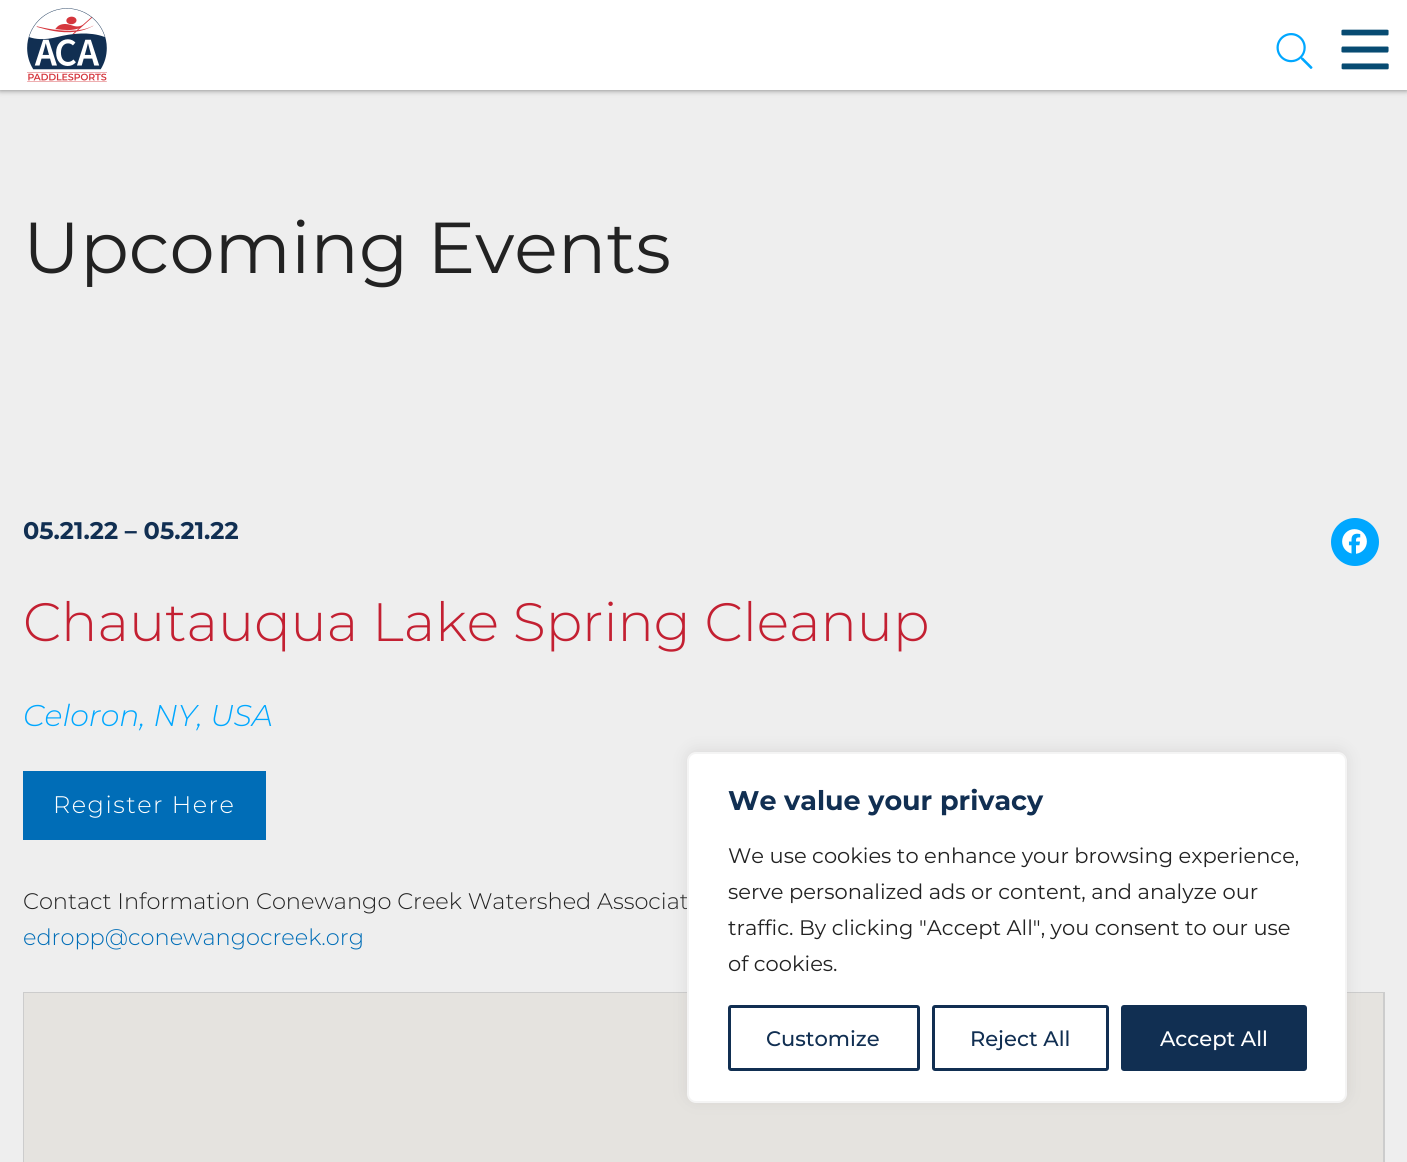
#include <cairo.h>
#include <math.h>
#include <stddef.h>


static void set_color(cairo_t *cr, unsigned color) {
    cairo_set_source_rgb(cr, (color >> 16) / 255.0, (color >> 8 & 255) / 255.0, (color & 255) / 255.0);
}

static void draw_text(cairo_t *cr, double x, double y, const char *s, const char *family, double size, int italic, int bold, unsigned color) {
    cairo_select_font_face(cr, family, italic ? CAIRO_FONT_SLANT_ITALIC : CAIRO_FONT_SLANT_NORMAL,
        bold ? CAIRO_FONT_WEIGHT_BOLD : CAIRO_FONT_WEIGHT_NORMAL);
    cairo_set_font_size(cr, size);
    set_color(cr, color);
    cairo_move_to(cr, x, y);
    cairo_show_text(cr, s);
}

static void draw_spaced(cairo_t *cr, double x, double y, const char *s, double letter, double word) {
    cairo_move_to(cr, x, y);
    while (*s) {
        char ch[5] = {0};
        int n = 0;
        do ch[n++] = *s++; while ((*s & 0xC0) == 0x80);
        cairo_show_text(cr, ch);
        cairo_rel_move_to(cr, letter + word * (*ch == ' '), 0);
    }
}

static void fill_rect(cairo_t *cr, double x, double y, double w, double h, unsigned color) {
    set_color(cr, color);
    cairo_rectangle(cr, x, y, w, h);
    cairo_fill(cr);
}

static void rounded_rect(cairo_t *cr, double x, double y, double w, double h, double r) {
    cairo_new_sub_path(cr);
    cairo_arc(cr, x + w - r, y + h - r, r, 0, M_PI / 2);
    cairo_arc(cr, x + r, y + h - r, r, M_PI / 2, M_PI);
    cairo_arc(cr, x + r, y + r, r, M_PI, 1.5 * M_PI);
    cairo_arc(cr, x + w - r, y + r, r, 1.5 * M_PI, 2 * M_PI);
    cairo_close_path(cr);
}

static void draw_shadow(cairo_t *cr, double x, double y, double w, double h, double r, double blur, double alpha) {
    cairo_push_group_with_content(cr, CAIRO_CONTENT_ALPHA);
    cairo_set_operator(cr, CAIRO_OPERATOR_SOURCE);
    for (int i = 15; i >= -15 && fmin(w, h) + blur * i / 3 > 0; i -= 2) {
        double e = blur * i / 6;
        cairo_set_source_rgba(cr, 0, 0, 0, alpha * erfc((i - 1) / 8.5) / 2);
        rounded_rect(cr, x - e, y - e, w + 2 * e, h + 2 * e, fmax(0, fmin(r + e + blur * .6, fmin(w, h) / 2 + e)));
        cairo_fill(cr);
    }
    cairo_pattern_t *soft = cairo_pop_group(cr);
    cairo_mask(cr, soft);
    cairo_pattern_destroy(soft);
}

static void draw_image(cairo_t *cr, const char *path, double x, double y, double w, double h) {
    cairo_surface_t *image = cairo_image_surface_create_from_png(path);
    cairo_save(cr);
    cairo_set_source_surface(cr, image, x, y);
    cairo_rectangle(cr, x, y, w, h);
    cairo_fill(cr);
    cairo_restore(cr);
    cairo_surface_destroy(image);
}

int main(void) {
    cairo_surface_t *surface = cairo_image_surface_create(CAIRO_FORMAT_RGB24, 1407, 1162);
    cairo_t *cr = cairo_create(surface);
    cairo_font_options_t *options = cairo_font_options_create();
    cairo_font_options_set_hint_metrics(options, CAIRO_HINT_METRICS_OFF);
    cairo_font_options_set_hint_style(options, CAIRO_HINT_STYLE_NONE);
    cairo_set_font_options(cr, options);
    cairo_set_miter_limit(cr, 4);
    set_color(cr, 0xEEEEEE);
    cairo_paint(cr);
    set_color(cr, 0x000000);
    draw_shadow(cr, 0, 0, 1407, 90, 0, 3, 0.5);
    fill_rect(cr, 0, 0, 1407, 90, 0xFFFFFF);
    draw_image(cr, "assets/img1.png", 27, 8, 80, 74);
    draw_image(cr, "assets/img2.png", 1276, 33, 37, 36);
    draw_image(cr, "assets/img3.png", 1341, 29, 48, 41);
    draw_text(cr, 23, 273, "Upcoming Events", "Montserrat", 72, 0, 0, 0x222222);
    draw_text(cr, 23, 539, "05.21.22 – 05.21.22", "Montserrat", 24, 0, 1, 0x112F52);
    set_color(cr, 0x00A7FF);
    cairo_new_path(cr);
    cairo_arc(cr, 1355, 542, 24, 0, 2 * M_PI);
    cairo_fill(cr);
    draw_image(cr, "assets/img4.png", 1342, 529, 25, 25);
    draw_text(cr, 23, 641, "Chautauqua Lake Spring Cleanup", "Montserrat Light", 54, 0, 0, 0xC32032);
    draw_text(cr, 23, 726, "Celoron, NY, USA", "Montserrat Light", 30, 1, 0, 0x00A7FF);
    fill_rect(cr, 23, 771, 243, 69, 0x006DB7);
    cairo_select_font_face(cr, "Montserrat Light", CAIRO_FONT_SLANT_NORMAL, CAIRO_FONT_WEIGHT_NORMAL);
    cairo_set_font_size(cr, 24);
    set_color(cr, 0xFFFFFF);
    draw_spaced(cr, 53, 813, "Register Here", 1.5, 0);
    draw_text(cr, 23, 909, "Contact Information Conewango Creek Watershed Associat", "Montserrat Light", 22.5, 0, 0, 0x222222);
    draw_text(cr, 23, 945, "edropp@conewangocreek.org", "Montserrat Light", 22.5, 0, 0, 0x006DB7);
    cairo_rectangle(cr, 24, 993, 1360, 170);
    set_color(cr, 0xCCCCCC);
    cairo_stroke(cr);
    fill_rect(cr, 24, 993, 1359, 169, 0xE5E3DF);
    set_color(cr, 0xACABAB);
    draw_shadow(cr, 687, 750, 660, 351, 9, 7.5, 0.3);
    set_color(cr, 0xFFFFFF);
    rounded_rect(cr, 688, 753, 658, 349, 8);
    cairo_fill_preserve(cr);
    set_color(cr, 0xF4F4F4);
    cairo_stroke(cr);
    draw_text(cr, 728, 810, "We value your privacy", "Montserrat", 27, 0, 1, 0x112F52);
    draw_text(cr, 728, 863, "We use cookies to enhance your browsing experience,", "Montserrat", 21, 0, 0, 0x222222);
    draw_text(cr, 728, 899, "serve personalized ads or content, and analyze our", "Montserrat", 21, 0, 0, 0x222222);
    draw_text(cr, 728, 935, "traffic. By clicking \"Accept All\", you consent to our use", "Montserrat", 21, 0, 0, 0x222222);
    draw_text(cr, 728, 971, "of cookies.", "Montserrat", 21, 0, 0, 0x222222);
    rounded_rect(cr, 729.5, 1006.5, 189, 63, 1.5);
    set_color(cr, 0x112F52);
    cairo_set_line_width(cr, 3);
    cairo_stroke(cr);
    draw_text(cr, 766, 1046, "Customize", "Montserrat Medium", 21, 0, 0, 0x112F52);
    rounded_rect(cr, 933.5, 1006.5, 174, 63, 1.5);
    cairo_stroke(cr);
    draw_text(cr, 970, 1046, "Reject All", "Montserrat Medium", 21, 0, 0, 0x112F52);
    rounded_rect(cr, 1122.5, 1006.5, 183, 63, 1.5);
    cairo_fill_preserve(cr);
    cairo_stroke(cr);
    draw_text(cr, 1160, 1046, "Accept All", "Montserrat Medium", 21, 0, 0, 0xFFFFFF);
    cairo_surface_write_to_png(surface, "output.png");
    cairo_font_options_destroy(options);
    cairo_destroy(cr);
    cairo_surface_destroy(surface);
    return 0;
}
